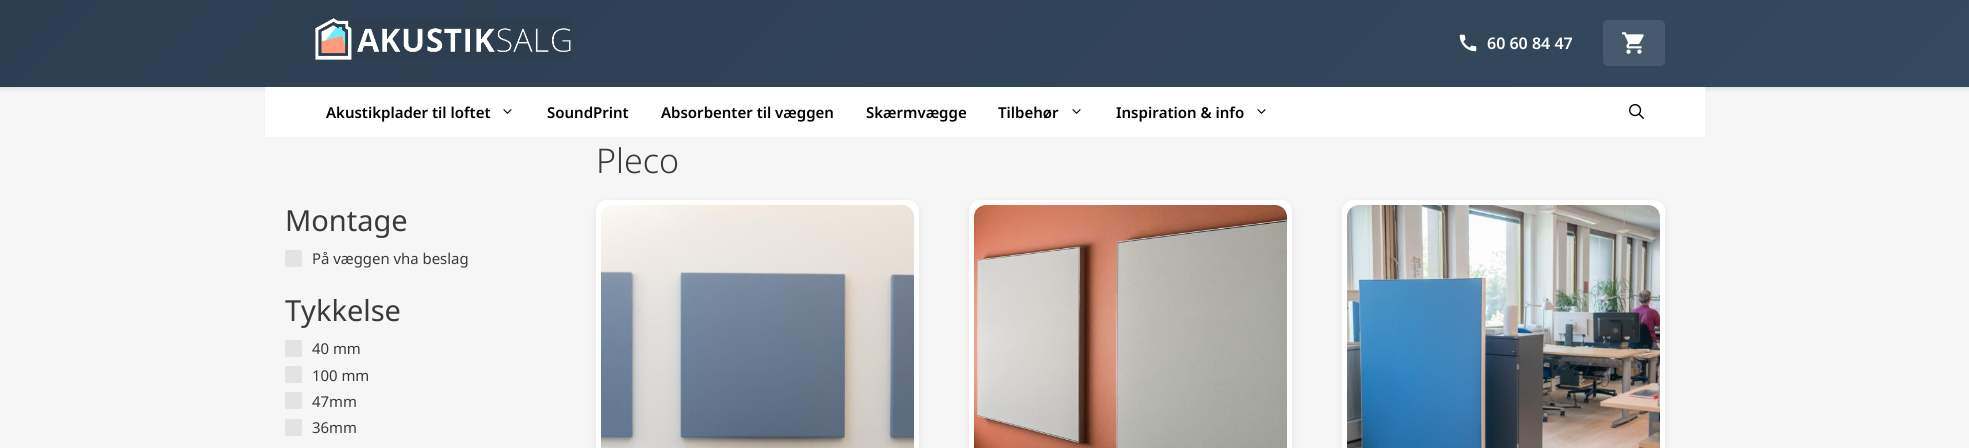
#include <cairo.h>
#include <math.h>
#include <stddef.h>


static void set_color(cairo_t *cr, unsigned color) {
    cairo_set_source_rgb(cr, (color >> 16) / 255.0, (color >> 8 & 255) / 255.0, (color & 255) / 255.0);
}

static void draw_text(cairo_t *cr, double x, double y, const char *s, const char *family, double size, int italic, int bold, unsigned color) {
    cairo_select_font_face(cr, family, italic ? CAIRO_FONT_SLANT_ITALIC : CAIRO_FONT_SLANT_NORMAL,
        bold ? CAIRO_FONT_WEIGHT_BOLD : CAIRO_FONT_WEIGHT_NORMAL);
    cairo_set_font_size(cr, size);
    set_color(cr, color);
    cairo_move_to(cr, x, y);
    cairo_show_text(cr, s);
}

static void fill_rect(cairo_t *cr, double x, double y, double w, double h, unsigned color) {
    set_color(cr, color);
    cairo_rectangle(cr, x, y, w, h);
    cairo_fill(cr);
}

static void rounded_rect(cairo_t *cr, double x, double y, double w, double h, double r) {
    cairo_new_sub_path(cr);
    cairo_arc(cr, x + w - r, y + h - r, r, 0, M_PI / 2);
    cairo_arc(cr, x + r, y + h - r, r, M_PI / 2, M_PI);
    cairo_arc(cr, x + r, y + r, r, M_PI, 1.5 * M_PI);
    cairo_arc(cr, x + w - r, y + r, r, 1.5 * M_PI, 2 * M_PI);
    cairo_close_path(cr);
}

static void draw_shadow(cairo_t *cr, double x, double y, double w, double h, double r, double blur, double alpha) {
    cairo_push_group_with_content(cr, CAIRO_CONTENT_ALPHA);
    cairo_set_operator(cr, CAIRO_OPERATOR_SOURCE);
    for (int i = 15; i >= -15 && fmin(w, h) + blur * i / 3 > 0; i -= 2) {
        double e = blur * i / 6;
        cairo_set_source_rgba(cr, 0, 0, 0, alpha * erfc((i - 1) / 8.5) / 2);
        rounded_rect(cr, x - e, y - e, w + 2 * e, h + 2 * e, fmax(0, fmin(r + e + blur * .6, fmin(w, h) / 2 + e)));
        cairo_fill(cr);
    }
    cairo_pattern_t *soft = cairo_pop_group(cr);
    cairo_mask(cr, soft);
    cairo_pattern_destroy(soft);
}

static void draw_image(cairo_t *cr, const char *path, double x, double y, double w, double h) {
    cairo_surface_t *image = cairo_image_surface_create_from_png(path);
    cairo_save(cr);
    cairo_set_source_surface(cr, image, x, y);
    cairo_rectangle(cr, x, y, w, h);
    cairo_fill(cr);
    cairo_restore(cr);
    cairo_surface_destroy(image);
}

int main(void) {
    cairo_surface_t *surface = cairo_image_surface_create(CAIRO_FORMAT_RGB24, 1969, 448);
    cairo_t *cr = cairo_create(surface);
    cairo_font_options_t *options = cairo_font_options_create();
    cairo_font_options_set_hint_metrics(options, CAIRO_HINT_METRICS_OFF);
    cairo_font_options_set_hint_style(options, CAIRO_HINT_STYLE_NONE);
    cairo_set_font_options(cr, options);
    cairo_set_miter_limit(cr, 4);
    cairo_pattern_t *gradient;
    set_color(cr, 0xF6F6F6);
    cairo_paint(cr);
    set_color(cr, 0x000000);
    draw_shadow(cr, 0, 2, 1969, 87, 0, 2.5, 0.1);
    gradient = cairo_pattern_create_linear(471, -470, 1499, 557);
    cairo_pattern_add_color_stop_rgba(gradient, 0, 0.173, 0.243, 0.314, 1);
    cairo_pattern_add_color_stop_rgba(gradient, 1, 0.204, 0.286, 0.369, 1);
    cairo_set_source(cr, gradient);
    cairo_pattern_destroy(gradient);
    cairo_rectangle(cr, 0, 0, 1969, 87);
    cairo_fill(cr);
    draw_image(cr, "assets/img1.png", 315, 18, 256, 42);
    draw_image(cr, "assets/img2.png", 1459, 34, 18, 18);
    draw_text(cr, 1487, 49, "60 60 84 47", "Noto Sans SemiBold", 16, 0, 0, 0xFFFFFF);
    set_color(cr, 0x47596C);
    rounded_rect(cr, 1603, 20, 62, 46, 5);
    cairo_fill(cr);
    draw_image(cr, "assets/img3.png", 1622, 32, 22, 22);
    fill_rect(cr, 265, 87, 1440, 50, 0xFFFFFF);
    draw_text(cr, 326, 118, "Akustikplader til loftet", "Noto Sans SemiBold", 15, 0, 0, 0x000000);
    draw_image(cr, "assets/img4.png", 503, 109, 9, 5);
    draw_text(cr, 547, 118, "SoundPrint", "Noto Sans SemiBold", 15, 0, 0, 0x000000);
    draw_text(cr, 661, 118, "Absorbenter til væggen", "Noto Sans SemiBold", 15, 0, 0, 0x000000);
    draw_text(cr, 866, 118, "Skærmvægge", "Noto Sans SemiBold", 15, 0, 0, 0x000000);
    draw_text(cr, 998, 118, "Tilbehør", "Noto Sans SemiBold", 15, 0, 0, 0x000000);
    draw_image(cr, "assets/img4.png", 1072, 109, 9, 5);
    draw_text(cr, 1116, 118, "Inspiration & info", "Noto Sans SemiBold", 15, 0, 0, 0x000000);
    draw_image(cr, "assets/img4.png", 1257, 109, 9, 5);
    draw_image(cr, "assets/img5.png", 1629, 104, 15, 15);
    draw_text(cr, 596, 173, "Pleco", "Noto Sans Light", 34, 0, 0, 0x3A3A3A);
    set_color(cr, 0x000000);
    draw_shadow(cr, 596, 202, 323, 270, 12, 4, 0.08);
    set_color(cr, 0xFFFFFF);
    rounded_rect(cr, 596, 200, 323, 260, 12);
    cairo_fill(cr);
    cairo_new_path(cr);
    cairo_move_to(cr, 608, 200);
    cairo_curve_to(cr, 601, 200, 596, 205, 596, 212);
    cairo_line_to(cr, 596, 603);
    cairo_line_to(cr, 601, 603);
    cairo_line_to(cr, 601, 212);
    cairo_curve_to(cr, 601, 208, 604, 205, 608, 205);
    cairo_line_to(cr, 907, 205);
    cairo_curve_to(cr, 911, 205, 914, 208, 914, 212);
    cairo_line_to(cr, 914, 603);
    cairo_line_to(cr, 919, 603);
    cairo_line_to(cr, 919, 212);
    cairo_curve_to(cr, 919, 205, 914, 200, 907, 200);
    cairo_close_path(cr);
    cairo_fill(cr);
    draw_image(cr, "assets/img6.png", 601, 205, 313, 243);
    set_color(cr, 0x000000);
    draw_shadow(cr, 969, 202, 323, 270, 12, 4, 0.08);
    set_color(cr, 0xFFFFFF);
    rounded_rect(cr, 969, 200, 323, 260, 12);
    cairo_fill(cr);
    cairo_new_path(cr);
    cairo_move_to(cr, 981, 200);
    cairo_curve_to(cr, 974, 200, 969, 205, 969, 212);
    cairo_line_to(cr, 969, 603);
    cairo_line_to(cr, 974, 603);
    cairo_line_to(cr, 974, 212);
    cairo_curve_to(cr, 974, 208, 977, 205, 981, 205);
    cairo_line_to(cr, 1280, 205);
    cairo_curve_to(cr, 1284, 205, 1287, 208, 1287, 212);
    cairo_line_to(cr, 1287, 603);
    cairo_line_to(cr, 1292, 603);
    cairo_line_to(cr, 1292, 212);
    cairo_curve_to(cr, 1292, 205, 1287, 200, 1280, 200);
    cairo_close_path(cr);
    cairo_fill(cr);
    draw_image(cr, "assets/img7.png", 974, 205, 313, 243);
    set_color(cr, 0x000000);
    draw_shadow(cr, 1342, 202, 323, 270, 12, 4, 0.08);
    set_color(cr, 0xFFFFFF);
    rounded_rect(cr, 1342, 200, 323, 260, 12);
    cairo_fill(cr);
    cairo_new_path(cr);
    cairo_move_to(cr, 1354, 200);
    cairo_curve_to(cr, 1347, 200, 1342, 205, 1342, 212);
    cairo_line_to(cr, 1342, 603);
    cairo_line_to(cr, 1347, 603);
    cairo_line_to(cr, 1347, 212);
    cairo_curve_to(cr, 1347, 208, 1350, 205, 1354, 205);
    cairo_line_to(cr, 1653, 205);
    cairo_curve_to(cr, 1657, 205, 1660, 208, 1660, 212);
    cairo_line_to(cr, 1660, 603);
    cairo_line_to(cr, 1665, 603);
    cairo_line_to(cr, 1665, 212);
    cairo_curve_to(cr, 1665, 205, 1660, 200, 1653, 200);
    cairo_close_path(cr);
    cairo_fill(cr);
    draw_image(cr, "assets/img8.png", 1347, 205, 313, 243);
    draw_text(cr, 285, 231, "Montage", "Noto Sans", 29, 0, 0, 0x3A3A3A);
    set_color(cr, 0xE3E3E3);
    rounded_rect(cr, 285, 250, 17, 17, 2);
    cairo_fill(cr);
    draw_text(cr, 312, 264, "På væggen vha beslag", "Noto Sans", 14.9, 0, 0, 0x3A3A3A);
    draw_text(cr, 285, 321, "Tykkelse", "Noto Sans", 29, 0, 0, 0x3A3A3A);
    set_color(cr, 0xE3E3E3);
    rounded_rect(cr, 285, 340, 17, 17, 2);
    cairo_fill(cr);
    draw_text(cr, 312, 354, "40 mm", "Noto Sans", 14.9, 0, 0, 0x3A3A3A);
    set_color(cr, 0xE3E3E3);
    rounded_rect(cr, 285, 366, 17, 17, 2);
    cairo_fill(cr);
    draw_text(cr, 312, 381, "100 mm", "Noto Sans", 14.9, 0, 0, 0x3A3A3A);
    set_color(cr, 0xE3E3E3);
    rounded_rect(cr, 285, 392, 17, 17, 2);
    cairo_fill(cr);
    draw_text(cr, 312, 407, "47mm", "Noto Sans", 14.9, 0, 0, 0x3A3A3A);
    set_color(cr, 0xE3E3E3);
    rounded_rect(cr, 285, 419, 17, 17, 2);
    cairo_fill(cr);
    draw_text(cr, 312, 433, "36mm", "Noto Sans", 14.9, 0, 0, 0x3A3A3A);
    cairo_surface_write_to_png(surface, "output.png");
    cairo_font_options_destroy(options);
    cairo_destroy(cr);
    cairo_surface_destroy(surface);
    return 0;
}
